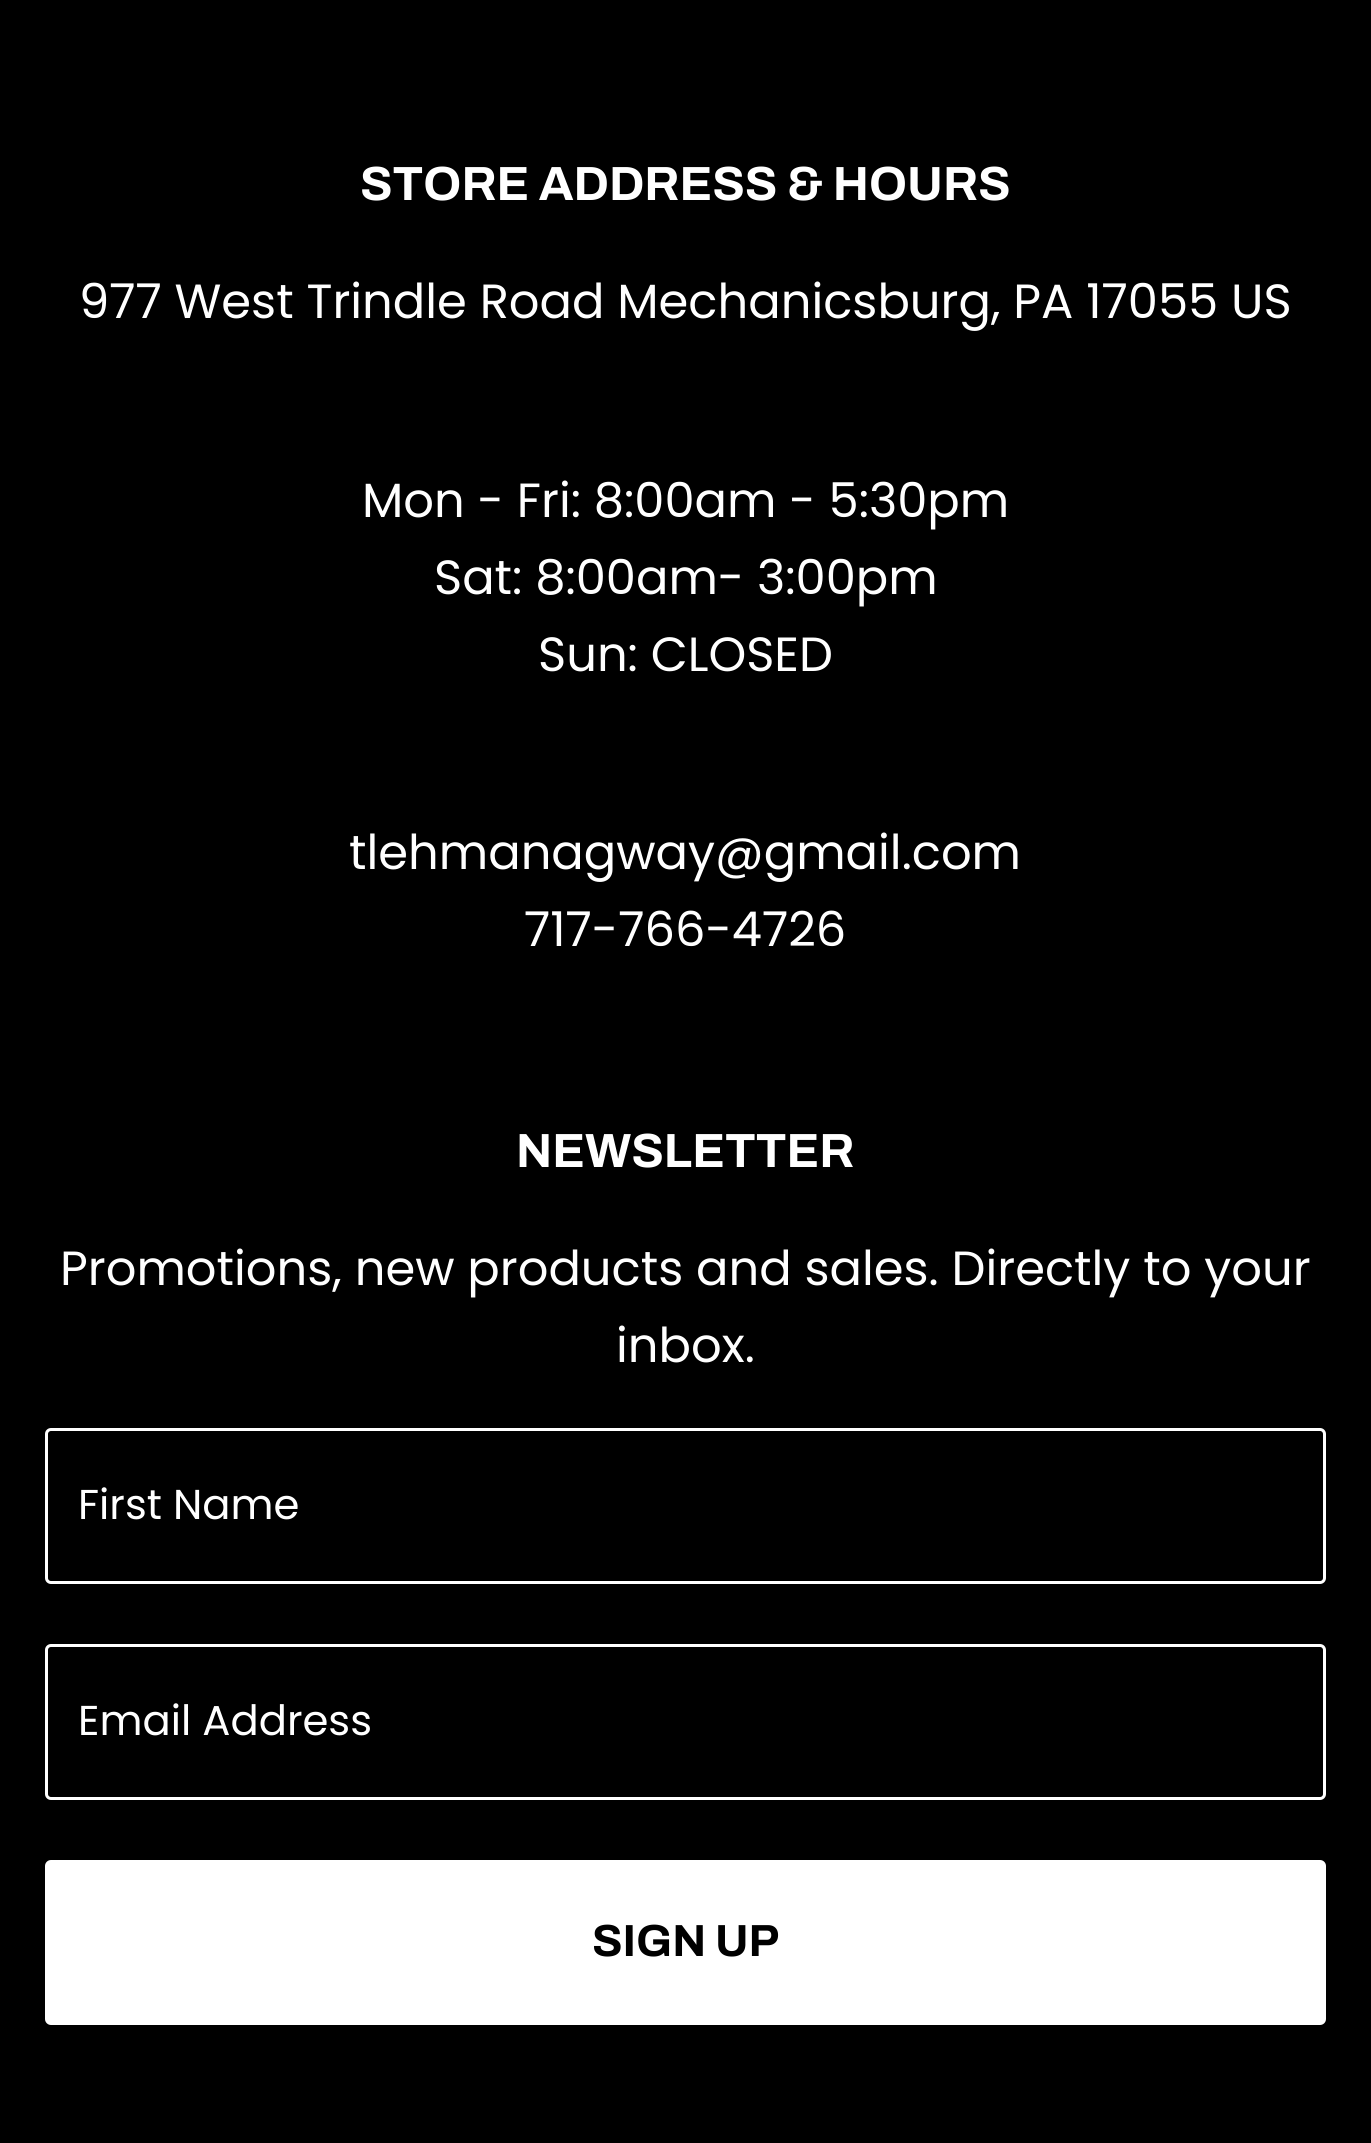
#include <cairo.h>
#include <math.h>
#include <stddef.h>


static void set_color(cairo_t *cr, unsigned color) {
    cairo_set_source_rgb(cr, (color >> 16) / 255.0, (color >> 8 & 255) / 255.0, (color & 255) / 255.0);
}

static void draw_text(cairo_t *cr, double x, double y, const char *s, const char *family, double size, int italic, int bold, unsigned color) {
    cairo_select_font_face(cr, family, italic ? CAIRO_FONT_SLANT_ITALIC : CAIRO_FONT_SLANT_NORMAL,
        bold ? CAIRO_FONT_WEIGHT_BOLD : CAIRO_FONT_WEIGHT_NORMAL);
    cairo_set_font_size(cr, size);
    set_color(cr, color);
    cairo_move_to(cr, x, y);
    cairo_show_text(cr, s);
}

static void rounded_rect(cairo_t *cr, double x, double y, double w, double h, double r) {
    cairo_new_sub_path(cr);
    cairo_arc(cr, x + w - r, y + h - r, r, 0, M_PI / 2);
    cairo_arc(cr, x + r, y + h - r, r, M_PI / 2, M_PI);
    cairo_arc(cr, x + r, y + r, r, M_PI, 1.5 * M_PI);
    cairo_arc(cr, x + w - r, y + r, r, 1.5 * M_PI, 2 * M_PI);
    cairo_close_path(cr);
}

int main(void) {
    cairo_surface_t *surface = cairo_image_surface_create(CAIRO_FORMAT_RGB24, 1371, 2143);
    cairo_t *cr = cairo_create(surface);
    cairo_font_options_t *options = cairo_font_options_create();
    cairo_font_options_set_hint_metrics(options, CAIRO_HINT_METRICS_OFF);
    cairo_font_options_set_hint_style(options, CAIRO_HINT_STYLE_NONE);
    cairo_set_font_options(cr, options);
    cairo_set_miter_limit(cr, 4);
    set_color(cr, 0x000000);
    cairo_paint(cr);
    draw_text(cr, 360, 200, "STORE ADDRESS & HOURS", "Archivo", 48, 0, 1, 0xFFFFFF);
    draw_text(cr, 79, 318, "977 West Trindle Road Mechanicsburg, PA 17055 US", "Poppins", 48, 0, 0, 0xFFFFFF);
    draw_text(cr, 362, 517, "Mon - Fri: 8:00am - 5:30pm", "Poppins", 48, 0, 0, 0xFFFFFF);
    draw_text(cr, 434, 594, "Sat: 8:00am- 3:00pm", "Poppins", 48, 0, 0, 0xFFFFFF);
    draw_text(cr, 538, 671, "Sun: CLOSED", "Poppins", 48, 0, 0, 0xFFFFFF);
    draw_text(cr, 349, 869, "tlehmanagway@gmail.com", "Poppins", 48, 0, 0, 0xFFFFFF);
    draw_text(cr, 524, 946, "717-766-4726", "Poppins", 48, 0, 0, 0xFFFFFF);
    draw_text(cr, 516, 1167, "NEWSLETTER", "Archivo", 48, 0, 1, 0xFFFFFF);
    draw_text(cr, 60, 1285, "Promotions, new products and sales. Directly to your", "Poppins", 48, 0, 0, 0xFFFFFF);
    draw_text(cr, 616, 1362, "inbox.", "Poppins", 48, 0, 0, 0xFFFFFF);
    rounded_rect(cr, 46.5, 1429.5, 1278, 153, 4.5);
    cairo_set_line_width(cr, 3);
    cairo_stroke(cr);
    draw_text(cr, 78, 1519, "First Name", "Poppins", 41.75, 0, 0, 0xFFFFFF);
    rounded_rect(cr, 46.5, 1645.5, 1278, 153, 4.5);
    cairo_stroke(cr);
    draw_text(cr, 78, 1735, "Email Address", "Poppins", 41.75, 0, 0, 0xFFFFFF);
    rounded_rect(cr, 45, 1860, 1281, 165, 6);
    cairo_fill(cr);
    draw_text(cr, 592, 1956, "SIGN UP", "Archivo", 45, 0, 1, 0x000000);
    cairo_surface_write_to_png(surface, "output.png");
    cairo_font_options_destroy(options);
    cairo_destroy(cr);
    cairo_surface_destroy(surface);
    return 0;
}
